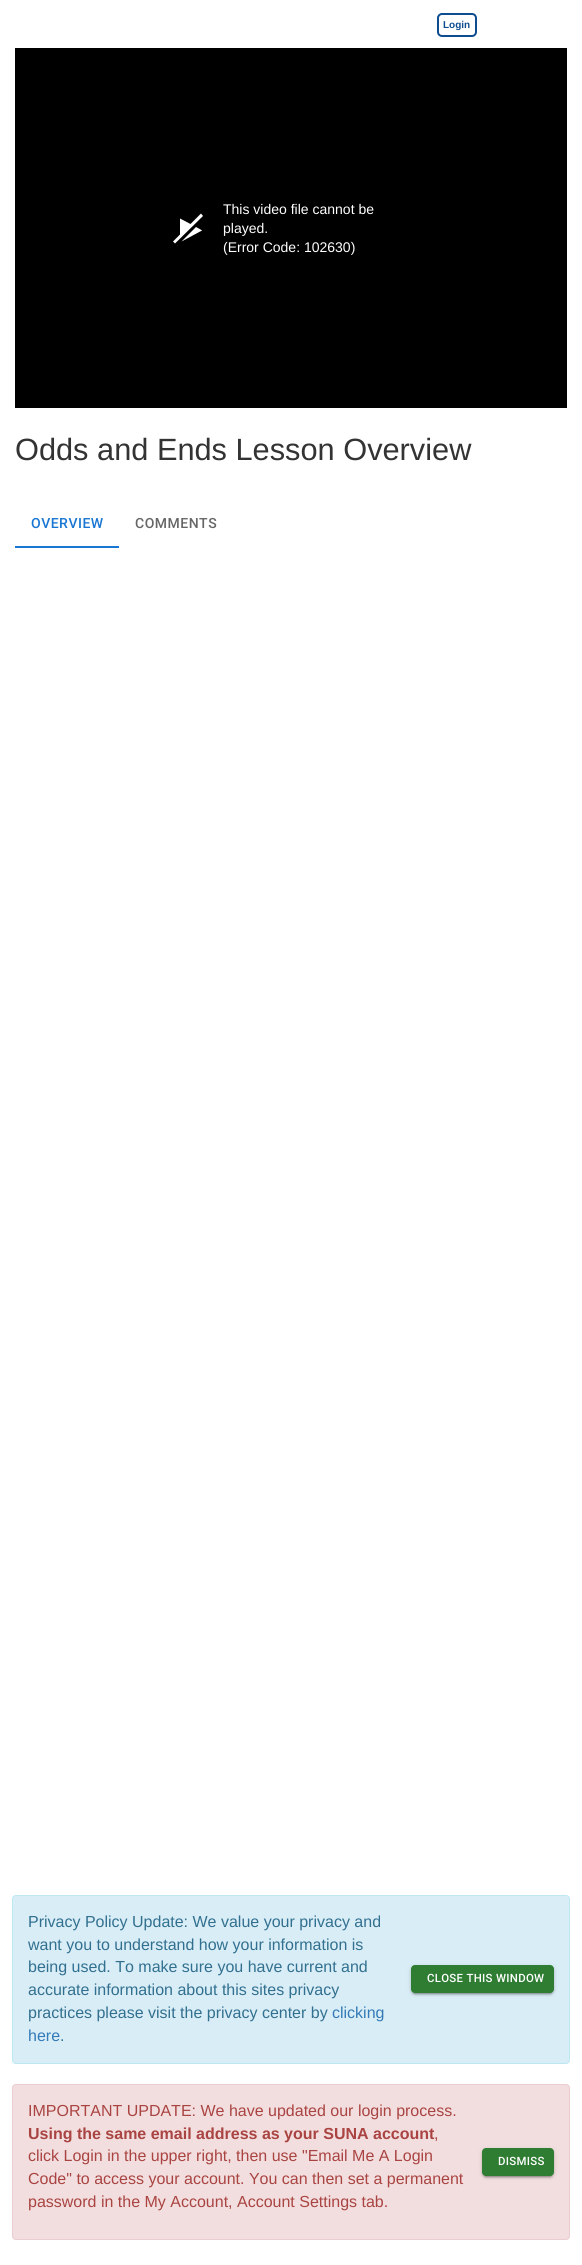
#include <cairo.h>
#include <math.h>
#include <stddef.h>


static void set_color(cairo_t *cr, unsigned color) {
    cairo_set_source_rgb(cr, (color >> 16) / 255.0, (color >> 8 & 255) / 255.0, (color & 255) / 255.0);
}

static void draw_text(cairo_t *cr, double x, double y, const char *s, const char *family, double size, int italic, int bold, unsigned color) {
    cairo_select_font_face(cr, family, italic ? CAIRO_FONT_SLANT_ITALIC : CAIRO_FONT_SLANT_NORMAL,
        bold ? CAIRO_FONT_WEIGHT_BOLD : CAIRO_FONT_WEIGHT_NORMAL);
    cairo_set_font_size(cr, size);
    set_color(cr, color);
    cairo_move_to(cr, x, y);
    cairo_show_text(cr, s);
}

static void draw_spaced(cairo_t *cr, double x, double y, const char *s, double letter, double word) {
    cairo_move_to(cr, x, y);
    while (*s) {
        char ch[5] = {0};
        int n = 0;
        do ch[n++] = *s++; while ((*s & 0xC0) == 0x80);
        cairo_show_text(cr, ch);
        cairo_rel_move_to(cr, letter + word * (*ch == ' '), 0);
    }
}

static void fill_rect(cairo_t *cr, double x, double y, double w, double h, unsigned color) {
    set_color(cr, color);
    cairo_rectangle(cr, x, y, w, h);
    cairo_fill(cr);
}

static void rounded_rect(cairo_t *cr, double x, double y, double w, double h, double r) {
    cairo_new_sub_path(cr);
    cairo_arc(cr, x + w - r, y + h - r, r, 0, M_PI / 2);
    cairo_arc(cr, x + r, y + h - r, r, M_PI / 2, M_PI);
    cairo_arc(cr, x + r, y + r, r, M_PI, 1.5 * M_PI);
    cairo_arc(cr, x + w - r, y + r, r, 1.5 * M_PI, 2 * M_PI);
    cairo_close_path(cr);
}

static void draw_shadow(cairo_t *cr, double x, double y, double w, double h, double r, double blur, double alpha) {
    cairo_push_group_with_content(cr, CAIRO_CONTENT_ALPHA);
    cairo_set_operator(cr, CAIRO_OPERATOR_SOURCE);
    for (int i = 15; i >= -15 && fmin(w, h) + blur * i / 3 > 0; i -= 2) {
        double e = blur * i / 6;
        cairo_set_source_rgba(cr, 0, 0, 0, alpha * erfc((i - 1) / 8.5) / 2);
        rounded_rect(cr, x - e, y - e, w + 2 * e, h + 2 * e, fmax(0, fmin(r + e + blur * .6, fmin(w, h) / 2 + e)));
        cairo_fill(cr);
    }
    cairo_pattern_t *soft = cairo_pop_group(cr);
    cairo_mask(cr, soft);
    cairo_pattern_destroy(soft);
}

int main(void) {
    cairo_surface_t *surface = cairo_image_surface_create(CAIRO_FORMAT_RGB24, 582, 2265);
    cairo_t *cr = cairo_create(surface);
    cairo_font_options_t *options = cairo_font_options_create();
    cairo_font_options_set_hint_metrics(options, CAIRO_HINT_METRICS_OFF);
    cairo_font_options_set_hint_style(options, CAIRO_HINT_STYLE_NONE);
    cairo_set_font_options(cr, options);
    cairo_set_miter_limit(cr, 4);
    set_color(cr, 0xFFFFFF);
    cairo_paint(cr);
    rounded_rect(cr, 438, 14, 38, 22, 4);
    set_color(cr, 0x0E4C8F);
    cairo_stroke(cr);
    draw_text(cr, 443, 28, "Login", "Liberation Sans", 10, 0, 1, 0x0E4C8F);
    fill_rect(cr, 15, 48, 552, 360, 0x000000);
    set_color(cr, 0xFFFFFF);
    cairo_new_path(cr);
    cairo_move_to(cr, 202, 230.5);
    cairo_line_to(cr, 181.5, 241.5);
    cairo_line_to(cr, 196, 227);
    cairo_curve_to(cr, 201.5, 230, 202.5, 230.5, 202, 230.5);
    cairo_close_path(cr);
    cairo_move_to(cr, 201, 213.5);
    cairo_line_to(cr, 190.5, 224);
    cairo_line_to(cr, 180, 218.5);
    cairo_line_to(cr, 180, 234.5);
    cairo_line_to(cr, 173, 241.5);
    cairo_line_to(cr, 175, 243.5);
    cairo_line_to(cr, 203, 216);
    cairo_close_path(cr);
    cairo_fill(cr);
    draw_text(cr, 223, 214, "This video file cannot be", "Liberation Sans", 14, 0, 0, 0xFFFFFF);
    draw_text(cr, 223, 233, "played.", "Liberation Sans", 14, 0, 0, 0xFFFFFF);
    draw_text(cr, 223, 252, "(Error Code: 102630)", "Liberation Sans", 14, 0, 0, 0xFFFFFF);
    draw_text(cr, 15, 460, "Odds and Ends Lesson Overview", "Liberation Sans", 30.75, 0, 0, 0x333333);
    cairo_select_font_face(cr, "Roboto Medium", CAIRO_FONT_SLANT_NORMAL, CAIRO_FONT_WEIGHT_NORMAL);
    cairo_set_font_size(cr, 14);
    set_color(cr, 0x1976D2);
    draw_spaced(cr, 31, 528, "OVERVIEW", 0.5, 0);
    set_color(cr, 0x666666);
    draw_spaced(cr, 135, 528, "COMMENTS", 0.5, 0);
    fill_rect(cr, 15, 546, 104, 2, 0x1976D2);
    set_color(cr, 0xD9EDF7);
    rounded_rect(cr, 12.5, 1895.5, 557, 168, 3.5);
    cairo_fill_preserve(cr);
    set_color(cr, 0xBCE8F1);
    cairo_set_line_width(cr, 1);
    cairo_stroke(cr);
    draw_text(cr, 28, 1927, "Privacy Policy Update: We value your privacy and", "Liberation Sans", 16, 0, 0, 0x31708F);
    draw_text(cr, 28, 1950, "want you to understand how your information is", "Liberation Sans", 16, 0, 0, 0x31708F);
    draw_text(cr, 28, 1972, "being used. To make sure you have current and", "Liberation Sans", 16, 0, 0, 0x31708F);
    draw_text(cr, 28, 1995, "accurate information about this sites privacy", "Liberation Sans", 16, 0, 0, 0x31708F);
    draw_text(cr, 28, 2018, "practices please visit the privacy center by", "Liberation Sans", 16, 0, 0, 0x31708F);
    draw_text(cr, 332, 2018, "clicking", "Liberation Sans", 16, 0, 0, 0x337AB7);
    draw_text(cr, 28, 2041, "here", "Liberation Sans", 16, 0, 0, 0x337AB7);
    draw_text(cr, 60, 2041, ".", "Liberation Sans", 16, 0, 0, 0x31708F);
    set_color(cr, 0x000000);
    draw_shadow(cr, 411, 1966, 143, 28, 4, 2.5, 0.12);
    draw_shadow(cr, 411, 1967, 143, 28, 4, 1, 0.14);
    draw_shadow(cr, 413, 1970, 139, 24, 2, 0.5, 0.2);
    set_color(cr, 0x2E7D32);
    rounded_rect(cr, 411, 1965, 143, 28, 4);
    cairo_fill(cr);
    cairo_select_font_face(cr, "Roboto Medium", CAIRO_FONT_SLANT_NORMAL, CAIRO_FONT_WEIGHT_NORMAL);
    cairo_set_font_size(cr, 11.4);
    set_color(cr, 0xFFFFFF);
    draw_spaced(cr, 427, 1982, "CLOSE THIS WINDOW", 0.3, 0);
    set_color(cr, 0xF2DEDE);
    rounded_rect(cr, 12.5, 2084.5, 557, 155, 3.5);
    cairo_fill_preserve(cr);
    set_color(cr, 0xEBCCD1);
    cairo_stroke(cr);
    draw_text(cr, 28, 2116, "IMPORTANT UPDATE: We have updated our login process.", "Liberation Sans", 16, 0, 0, 0xA94442);
    draw_text(cr, 28, 2139, "Using the same email address as your SUNA account", "Liberation Sans", 16, 0, 1, 0xA94442);
    draw_text(cr, 434, 2139, ",", "Liberation Sans", 16, 0, 0, 0xA94442);
    draw_text(cr, 28, 2161, "click Login in the upper right, then use \"Email Me A Login", "Liberation Sans", 16, 0, 0, 0xA94442);
    draw_text(cr, 28, 2184, "Code\" to access your account. You can then set a permanent", "Liberation Sans", 16, 0, 0, 0xA94442);
    draw_text(cr, 28, 2207, "password in the My Account, Account Settings tab.", "Liberation Sans", 16, 0, 0, 0xA94442);
    set_color(cr, 0x000000);
    draw_shadow(cr, 482, 2149, 72, 28, 4, 2.5, 0.12);
    draw_shadow(cr, 482, 2150, 72, 28, 4, 1, 0.14);
    draw_shadow(cr, 484, 2153, 68, 24, 2, 0.5, 0.2);
    set_color(cr, 0x2E7D32);
    rounded_rect(cr, 482, 2148, 72, 28, 4);
    cairo_fill(cr);
    cairo_select_font_face(cr, "Roboto Medium", CAIRO_FONT_SLANT_NORMAL, CAIRO_FONT_WEIGHT_NORMAL);
    cairo_set_font_size(cr, 11.4);
    set_color(cr, 0xFFFFFF);
    draw_spaced(cr, 498, 2165, "DISMISS", 0.3, 0);
    cairo_surface_write_to_png(surface, "output.png");
    cairo_font_options_destroy(options);
    cairo_destroy(cr);
    cairo_surface_destroy(surface);
    return 0;
}
